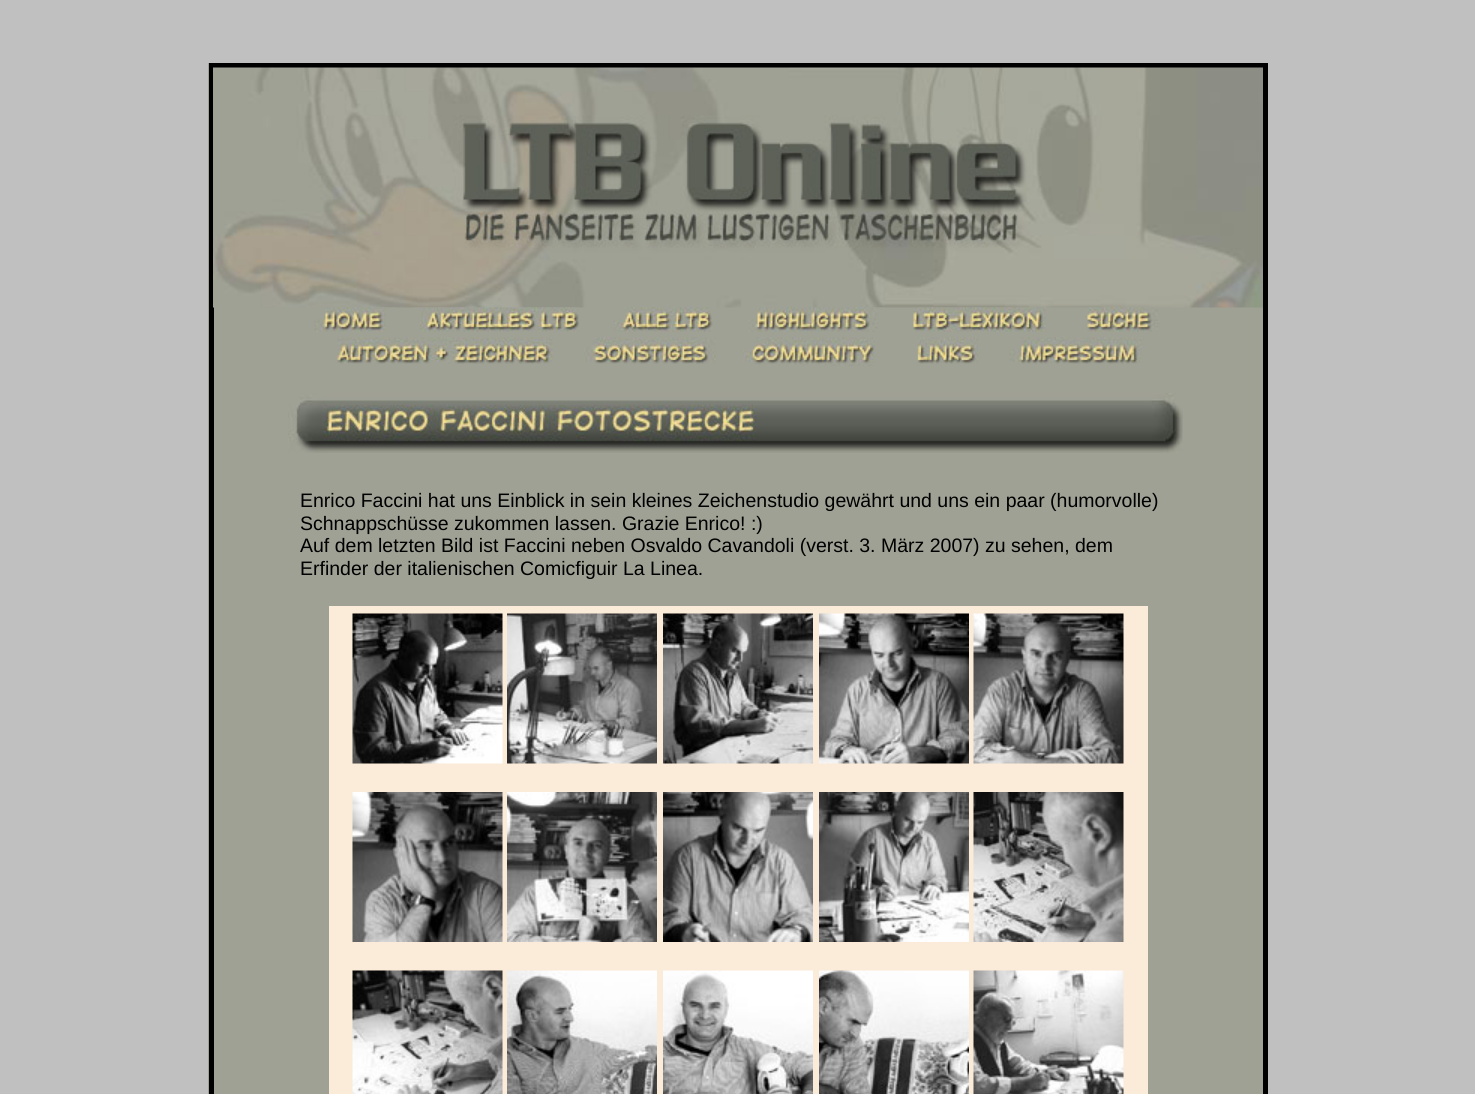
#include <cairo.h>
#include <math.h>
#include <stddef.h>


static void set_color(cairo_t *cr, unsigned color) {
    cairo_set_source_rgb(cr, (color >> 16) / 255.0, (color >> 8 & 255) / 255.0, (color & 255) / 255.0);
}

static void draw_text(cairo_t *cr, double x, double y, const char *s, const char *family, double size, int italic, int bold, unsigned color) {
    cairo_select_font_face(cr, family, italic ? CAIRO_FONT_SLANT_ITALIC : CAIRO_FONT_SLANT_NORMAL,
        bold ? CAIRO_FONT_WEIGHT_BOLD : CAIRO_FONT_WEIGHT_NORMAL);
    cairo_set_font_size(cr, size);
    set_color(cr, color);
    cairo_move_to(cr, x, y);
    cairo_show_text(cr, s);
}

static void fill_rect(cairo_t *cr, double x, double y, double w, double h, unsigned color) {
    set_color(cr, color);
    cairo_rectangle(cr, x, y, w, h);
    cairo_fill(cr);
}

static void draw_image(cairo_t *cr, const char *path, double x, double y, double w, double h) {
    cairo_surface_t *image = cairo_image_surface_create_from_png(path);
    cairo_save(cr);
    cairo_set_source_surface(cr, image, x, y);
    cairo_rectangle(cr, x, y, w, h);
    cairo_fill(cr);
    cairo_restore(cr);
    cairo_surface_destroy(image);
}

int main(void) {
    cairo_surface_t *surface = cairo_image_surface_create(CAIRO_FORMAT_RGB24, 1475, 1094);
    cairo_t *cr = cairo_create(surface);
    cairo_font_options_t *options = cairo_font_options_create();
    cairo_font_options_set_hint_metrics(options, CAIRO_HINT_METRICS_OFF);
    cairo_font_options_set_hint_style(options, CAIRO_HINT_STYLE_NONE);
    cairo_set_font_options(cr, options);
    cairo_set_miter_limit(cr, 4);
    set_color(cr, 0xC0C0C0);
    cairo_paint(cr);
    fill_rect(cr, 208, 63, 1055, 1031, 0x9FA194);
    cairo_rectangle(cr, 210.5, 64.5, 1056, 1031);
    set_color(cr, 0x000000);
    cairo_set_line_width(cr, 3);
    cairo_stroke(cr);
    cairo_rectangle(cr, 213, 67, 1051, 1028);
    cairo_set_line_width(cr, 2);
    cairo_stroke(cr);
    draw_image(cr, "assets/img1.png", 213, 67, 1050, 241);
    draw_image(cr, "assets/img2.png", 314, 307, 83, 25);
    draw_image(cr, "assets/img3.png", 413, 307, 166, 25);
    draw_image(cr, "assets/img4.png", 614, 307, 99, 25);
    draw_image(cr, "assets/img5.png", 748, 307, 137, 25);
    draw_image(cr, "assets/img6.png", 913, 307, 133, 25);
    draw_image(cr, "assets/img7.png", 1087, 307, 72, 25);
    draw_image(cr, "assets/img8.png", 337, 337, 216, 27);
    draw_image(cr, "assets/img9.png", 584, 337, 132, 27);
    draw_image(cr, "assets/img10.png", 743, 337, 132, 29);
    draw_image(cr, "assets/img11.png", 917, 337, 61, 27);
    draw_image(cr, "assets/img12.png", 1009, 337, 133, 27);
    draw_image(cr, "assets/img13.png", 288, 393, 895, 60);
    draw_text(cr, 300, 507, "Enrico Faccini hat uns Einblick in sein kleines Zeichenstudio gewährt und uns ein paar (humorvolle)", "Liberation Sans", 19.5, 0, 0, 0x000000);
    draw_text(cr, 300, 530, "Schnappschüsse zukommen lassen. Grazie Enrico! :)", "Liberation Sans", 19.5, 0, 0, 0x000000);
    draw_text(cr, 300, 552, "Auf dem letzten Bild ist Faccini neben Osvaldo Cavandoli (verst. 3. März 2007) zu sehen, dem", "Liberation Sans", 19.5, 0, 0, 0x000000);
    draw_text(cr, 300, 575, "Erfinder der italienischen Comicfiguir La Linea.", "Liberation Sans", 19.5, 0, 0, 0x000000);
    fill_rect(cr, 329, 606, 819, 488, 0xFBEBD9);
    draw_image(cr, "assets/img14.png", 352, 613, 151, 151);
    draw_image(cr, "assets/img15.png", 507, 613, 150, 151);
    draw_image(cr, "assets/img16.png", 663, 613, 150, 151);
    draw_image(cr, "assets/img17.png", 819, 613, 150, 151);
    draw_image(cr, "assets/img18.png", 973, 613, 151, 151);
    draw_image(cr, "assets/img19.png", 352, 792, 151, 150);
    draw_image(cr, "assets/img20.png", 507, 792, 150, 150);
    draw_image(cr, "assets/img21.png", 663, 792, 150, 150);
    draw_image(cr, "assets/img22.png", 819, 792, 150, 150);
    draw_image(cr, "assets/img23.png", 973, 792, 151, 150);
    draw_image(cr, "assets/img24.png", 352, 970, 151, 124);
    draw_image(cr, "assets/img25.png", 507, 970, 150, 124);
    draw_image(cr, "assets/img26.png", 663, 970, 150, 124);
    draw_image(cr, "assets/img27.png", 819, 970, 150, 124);
    draw_image(cr, "assets/img28.png", 973, 970, 151, 124);
    cairo_surface_write_to_png(surface, "output.png");
    cairo_font_options_destroy(options);
    cairo_destroy(cr);
    cairo_surface_destroy(surface);
    return 0;
}
